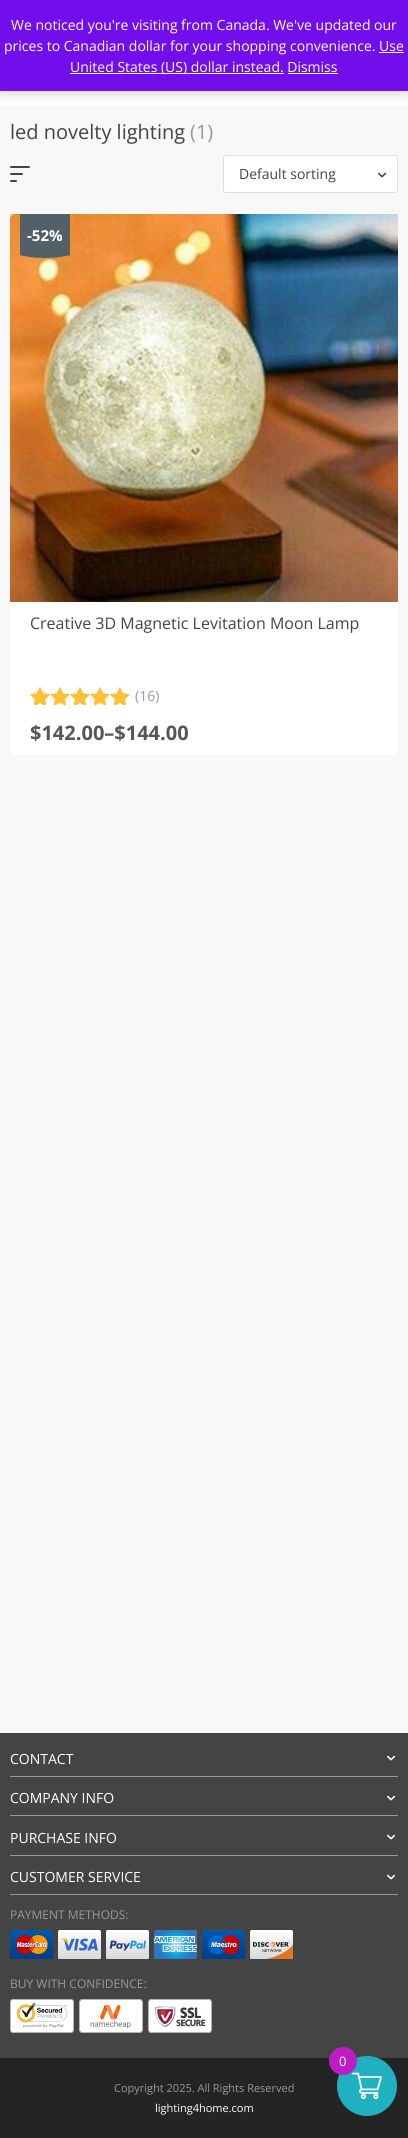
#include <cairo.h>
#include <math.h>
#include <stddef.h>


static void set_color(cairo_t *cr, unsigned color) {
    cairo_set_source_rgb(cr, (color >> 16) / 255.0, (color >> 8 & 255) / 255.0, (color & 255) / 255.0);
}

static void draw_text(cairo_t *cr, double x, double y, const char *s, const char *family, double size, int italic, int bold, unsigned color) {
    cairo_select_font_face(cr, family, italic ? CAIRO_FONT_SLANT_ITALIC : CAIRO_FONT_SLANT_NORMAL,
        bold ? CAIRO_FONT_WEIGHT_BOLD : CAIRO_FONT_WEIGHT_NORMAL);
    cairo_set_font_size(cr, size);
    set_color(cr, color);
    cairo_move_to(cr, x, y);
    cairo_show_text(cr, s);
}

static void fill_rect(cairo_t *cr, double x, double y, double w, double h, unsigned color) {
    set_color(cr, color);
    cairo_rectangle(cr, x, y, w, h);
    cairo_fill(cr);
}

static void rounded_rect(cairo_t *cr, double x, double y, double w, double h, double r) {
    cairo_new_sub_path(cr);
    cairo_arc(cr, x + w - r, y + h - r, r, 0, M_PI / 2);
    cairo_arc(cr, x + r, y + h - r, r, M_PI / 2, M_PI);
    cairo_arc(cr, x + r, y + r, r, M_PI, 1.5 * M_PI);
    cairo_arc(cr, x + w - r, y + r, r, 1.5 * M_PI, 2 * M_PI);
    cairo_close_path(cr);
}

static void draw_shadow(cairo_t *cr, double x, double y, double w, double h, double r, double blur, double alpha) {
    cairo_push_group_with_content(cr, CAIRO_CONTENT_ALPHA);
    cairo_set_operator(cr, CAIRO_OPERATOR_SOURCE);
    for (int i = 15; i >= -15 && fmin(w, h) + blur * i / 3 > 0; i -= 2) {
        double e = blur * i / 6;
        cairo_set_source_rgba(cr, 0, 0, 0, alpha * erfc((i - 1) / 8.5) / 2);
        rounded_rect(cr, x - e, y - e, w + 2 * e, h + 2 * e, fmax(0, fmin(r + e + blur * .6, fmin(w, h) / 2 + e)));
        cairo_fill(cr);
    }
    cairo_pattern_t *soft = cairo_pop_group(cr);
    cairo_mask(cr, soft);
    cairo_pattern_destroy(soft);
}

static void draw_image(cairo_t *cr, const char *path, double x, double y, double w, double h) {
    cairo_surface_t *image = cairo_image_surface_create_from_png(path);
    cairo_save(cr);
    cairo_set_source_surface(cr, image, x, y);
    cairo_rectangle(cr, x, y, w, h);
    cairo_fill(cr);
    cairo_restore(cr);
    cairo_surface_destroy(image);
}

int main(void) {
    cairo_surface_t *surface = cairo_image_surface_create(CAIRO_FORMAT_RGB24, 408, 2138);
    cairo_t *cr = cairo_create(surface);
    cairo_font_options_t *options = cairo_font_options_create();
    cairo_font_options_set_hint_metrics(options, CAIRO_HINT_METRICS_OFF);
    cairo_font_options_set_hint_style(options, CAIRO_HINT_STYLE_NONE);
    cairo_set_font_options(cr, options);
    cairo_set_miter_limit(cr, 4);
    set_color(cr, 0xF8F8F8);
    cairo_paint(cr);
    fill_rect(cr, 0, 91, 408, 15, 0xFFFFFF);
    set_color(cr, 0x000000);
    draw_shadow(cr, 0, 1, 408, 91, 0, 7, 0.2);
    fill_rect(cr, 0, 0, 408, 91, 0x720EEC);
    draw_text(cr, 11, 30, "We noticed you're visiting from Canada. We've updated our", "Open Sans", 14, 0, 0, 0xFFFFFF);
    draw_text(cr, 4, 51, "prices to Canadian dollar for your shopping convenience. Use", "Open Sans", 14, 0, 0, 0xFFFFFF);
    fill_rect(cr, 70, 73, 214, 1, 0xFCFBFE);
    draw_text(cr, 70, 72, "United States (US) dollar instead. Dismiss", "Open Sans", 14, 0, 0, 0xFFFFFF);
    fill_rect(cr, 379, 52, 25, 1, 0xFCFBFE);
    fill_rect(cr, 288, 73, 50, 1, 0xFCFBFE);
    draw_text(cr, 10, 139, "led novelty lighting", "Open Sans", 20, 0, 0, 0x444444);
    draw_text(cr, 190, 139, "(1)", "Open Sans", 20, 0, 0, 0x999999);
    set_color(cr, 0x444444);
    rounded_rect(cr, 10, 166, 20, 2, 1);
    cairo_fill(cr);
    rounded_rect(cr, 10, 173, 13, 2, 1);
    cairo_fill(cr);
    rounded_rect(cr, 10, 180, 7, 2, 1);
    cairo_fill(cr);
    set_color(cr, 0xFFFFFF);
    rounded_rect(cr, 223.5, 155.5, 174, 37, 2.5);
    cairo_fill_preserve(cr);
    set_color(cr, 0xDFDFDF);
    cairo_set_line_width(cr, 1);
    cairo_stroke(cr);
    draw_text(cr, 239, 179, "Default sorting", "Open Sans", 14, 0, 0, 0x444444);
    draw_image(cr, "assets/img1.png", 378, 172, 9, 6);
    fill_rect(cr, 10, 602, 388, 153, 0xFFFFFF);
    draw_image(cr, "assets/img2.png", 10, 214, 388, 388);
    cairo_save(cr);
    cairo_rectangle(cr, 20, 214, 50, 44);
    cairo_clip(cr);
    set_color(cr, 0x536068);
    cairo_new_path(cr);
    cairo_move_to(cr, 45, 82);
    cairo_curve_to(cr, 100, 82, 145, 121.5, 145, 170);
    cairo_curve_to(cr, 145, 218.5, 100, 258, 45, 258);
    cairo_curve_to(cr, -10, 258, -55, 218.5, -55, 170);
    cairo_curve_to(cr, -55, 121.5, -10, 82, 45, 82);
    cairo_close_path(cr);
    cairo_fill(cr);
    cairo_restore(cr);
    draw_text(cr, 27, 241, "-52%", "Open Sans", 15, 0, 1, 0xFFFFFF);
    draw_text(cr, 30, 629, "Creative 3D Magnetic Levitation Moon Lamp", "Open Sans", 16, 0, 0, 0x444444);
    draw_image(cr, "assets/img3.png", 30, 687, 100, 18);
    draw_image(cr, "assets/img4.png", 30, 687, 100, 18);
    draw_image(cr, "assets/img5.png", 30, 687, 19, 18);
    draw_text(cr, 135, 701, "(16)", "Open Sans", 14, 0, 0, 0x999999);
    draw_text(cr, 30, 740, "$142.00–$144.00", "Open Sans", 20, 0, 1, 0x565656);
    fill_rect(cr, 0, 1733, 408, 325, 0x444444);
    fill_rect(cr, 10, 1776, 388, 1, 0x999999);
    draw_text(cr, 10, 1764, "CONTACT", "Open Sans", 14, 0, 0, 0xFFFFFF);
    draw_image(cr, "assets/img6.png", 387, 1755, 9, 6);
    fill_rect(cr, 10, 1815, 388, 1, 0x999999);
    draw_text(cr, 10, 1803, "COMPANY INFO", "Open Sans", 14, 0, 0, 0xFFFFFF);
    draw_image(cr, "assets/img6.png", 387, 1795, 9, 6);
    fill_rect(cr, 10, 1855, 388, 1, 0x999999);
    draw_text(cr, 10, 1843, "PURCHASE INFO", "Open Sans", 14, 0, 0, 0xFFFFFF);
    draw_image(cr, "assets/img6.png", 387, 1834, 9, 6);
    fill_rect(cr, 10, 1894, 388, 1, 0x999999);
    draw_text(cr, 10, 1882, "CUSTOMER SERVICE", "Open Sans", 14, 0, 0, 0xFFFFFF);
    draw_image(cr, "assets/img6.png", 387, 1874, 9, 6);
    draw_text(cr, 10, 1919, "PAYMENT METHODS:", "Open Sans", 12, 0, 0, 0x999999);
    draw_image(cr, "assets/img7.png", 10, 1930, 43, 29);
    draw_image(cr, "assets/img8.png", 58, 1930, 43, 29);
    draw_image(cr, "assets/img9.png", 106, 1930, 43, 29);
    draw_image(cr, "assets/img10.png", 154, 1930, 43, 29);
    draw_image(cr, "assets/img11.png", 202, 1930, 43, 29);
    draw_image(cr, "assets/img12.png", 250, 1930, 43, 29);
    draw_text(cr, 10, 1988, "BUY WITH CONFIDENCE:", "Open Sans", 12, 0, 0, 0x999999);
    set_color(cr, 0xFFFFFF);
    rounded_rect(cr, 10.5, 1999.5, 63, 33, 2.5);
    cairo_fill_preserve(cr);
    set_color(cr, 0xB5B5B5);
    cairo_stroke(cr);
    draw_image(cr, "assets/img13.png", 11, 2000, 62, 28);
    rounded_rect(cr, 79.5, 1999.5, 63, 33, 2.5);
    cairo_stroke(cr);
    draw_image(cr, "assets/img14.png", 80, 2000, 62, 32);
    rounded_rect(cr, 148.5, 1999.5, 63, 33, 2.5);
    cairo_stroke(cr);
    draw_image(cr, "assets/img15.png", 149, 2000, 62, 32);
    fill_rect(cr, 0, 2058, 408, 80, 0x242424);
    draw_text(cr, 114, 2092, "Copyright 2025. All Rights Reserved", "Open Sans", 11, 0, 0, 0x999999);
    draw_text(cr, 155, 2112, "lighting4home.com", "Open Sans", 11, 0, 0, 0xFFFFFF);
    set_color(cr, 0x20B1C1);
    cairo_new_path(cr);
    cairo_arc(cr, 367, 2086, 30, 0, 2 * M_PI);
    cairo_fill(cr);
    draw_image(cr, "assets/img16.png", 352, 2072, 30, 27);
    set_color(cr, 0xBE1DC4);
    cairo_arc(cr, 343, 2061, 14, 0, 2 * M_PI);
    cairo_fill(cr);
    draw_text(cr, 339, 2066, "0", "Open Sans", 13, 0, 0, 0xFFFFFF);
    cairo_surface_write_to_png(surface, "output.png");
    cairo_font_options_destroy(options);
    cairo_destroy(cr);
    cairo_surface_destroy(surface);
    return 0;
}
